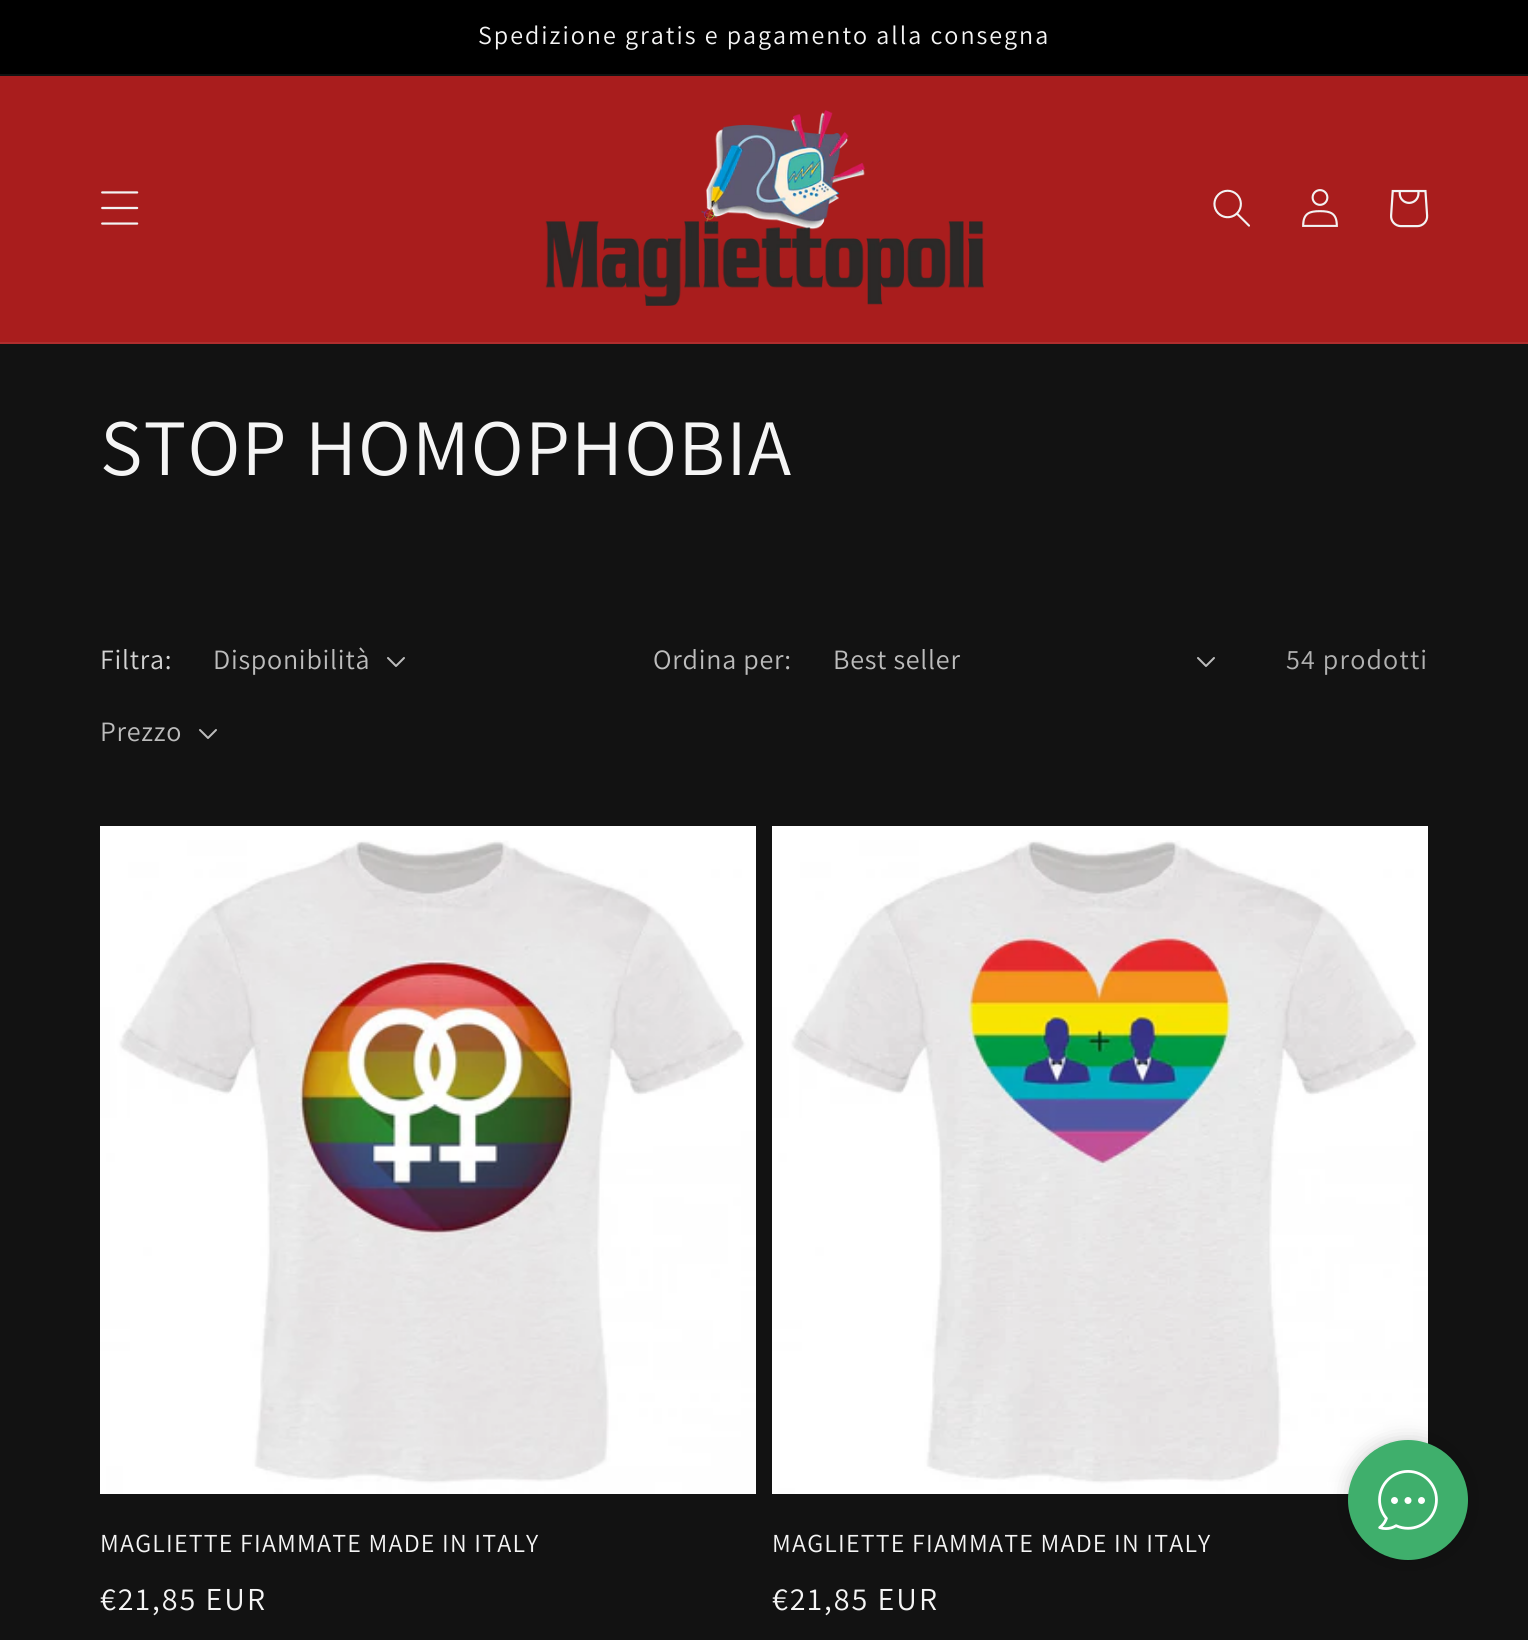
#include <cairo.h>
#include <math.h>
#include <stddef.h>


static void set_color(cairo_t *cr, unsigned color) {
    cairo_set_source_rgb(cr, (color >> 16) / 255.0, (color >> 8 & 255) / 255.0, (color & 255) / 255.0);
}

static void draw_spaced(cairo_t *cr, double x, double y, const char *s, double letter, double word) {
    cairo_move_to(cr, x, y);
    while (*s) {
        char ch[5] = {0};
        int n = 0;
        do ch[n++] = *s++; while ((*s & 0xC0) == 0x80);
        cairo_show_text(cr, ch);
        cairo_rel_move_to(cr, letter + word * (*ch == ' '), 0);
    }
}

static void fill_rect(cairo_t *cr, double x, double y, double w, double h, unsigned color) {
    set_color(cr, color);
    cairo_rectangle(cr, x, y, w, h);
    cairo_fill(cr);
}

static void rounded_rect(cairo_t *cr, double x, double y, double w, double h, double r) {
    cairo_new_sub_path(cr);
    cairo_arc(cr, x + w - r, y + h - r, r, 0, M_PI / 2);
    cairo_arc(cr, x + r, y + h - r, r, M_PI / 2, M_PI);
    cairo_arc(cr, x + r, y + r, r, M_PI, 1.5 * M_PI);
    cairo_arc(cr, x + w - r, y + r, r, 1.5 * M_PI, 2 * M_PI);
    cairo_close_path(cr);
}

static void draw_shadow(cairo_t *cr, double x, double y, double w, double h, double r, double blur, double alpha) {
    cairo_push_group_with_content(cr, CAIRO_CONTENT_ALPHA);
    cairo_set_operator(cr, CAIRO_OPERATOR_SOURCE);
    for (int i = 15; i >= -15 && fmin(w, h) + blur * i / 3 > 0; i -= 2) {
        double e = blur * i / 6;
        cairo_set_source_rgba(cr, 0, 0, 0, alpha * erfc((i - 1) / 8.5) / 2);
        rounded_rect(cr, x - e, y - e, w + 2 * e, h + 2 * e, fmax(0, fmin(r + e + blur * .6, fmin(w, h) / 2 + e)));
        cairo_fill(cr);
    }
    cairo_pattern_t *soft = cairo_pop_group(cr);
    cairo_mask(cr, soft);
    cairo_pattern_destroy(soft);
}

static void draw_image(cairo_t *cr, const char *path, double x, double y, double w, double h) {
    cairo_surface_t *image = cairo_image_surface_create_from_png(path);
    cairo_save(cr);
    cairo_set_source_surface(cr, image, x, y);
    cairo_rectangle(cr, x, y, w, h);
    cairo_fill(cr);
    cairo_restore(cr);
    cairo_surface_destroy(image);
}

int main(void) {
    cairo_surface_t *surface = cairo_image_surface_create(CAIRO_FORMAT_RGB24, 1528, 1640);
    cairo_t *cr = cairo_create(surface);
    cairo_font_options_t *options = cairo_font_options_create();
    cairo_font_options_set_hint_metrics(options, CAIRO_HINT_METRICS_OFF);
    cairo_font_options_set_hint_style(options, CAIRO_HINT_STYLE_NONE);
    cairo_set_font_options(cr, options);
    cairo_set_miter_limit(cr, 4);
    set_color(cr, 0x121212);
    cairo_paint(cr);
    fill_rect(cr, 0, 0, 1528, 74, 0x000000);
    cairo_select_font_face(cr, "Assistant", CAIRO_FONT_SLANT_NORMAL, CAIRO_FONT_WEIGHT_NORMAL);
    cairo_set_font_size(cr, 26);
    set_color(cr, 0xF5F5F5);
    draw_spaced(cr, 478, 44, "Spedizione gratis e pagamento alla consegna", 2, 0);
    fill_rect(cr, 0, 76, 1528, 266, 0xA91D1D);
    fill_rect(cr, 0, 342, 1528, 2, 0xAF2E2E);
    draw_image(cr, "assets/img1.png", 101, 191, 38, 34);
    draw_image(cr, "assets/img2.png", 545, 110, 439, 196);
    draw_image(cr, "assets/img3.png", 1213, 189, 37, 38);
    draw_image(cr, "assets/img4.png", 1302, 189, 36, 38);
    draw_image(cr, "assets/img5.png", 1390, 189, 39, 39);
    cairo_set_font_size(cr, 80);
    set_color(cr, 0xF5F5F5);
    draw_spaced(cr, 100, 475, "STOP HOMOPHOBIA", 1.2, 0);
    cairo_set_font_size(cr, 28);
    set_color(cr, 0xD3D3D3);
    draw_spaced(cr, 100, 669, "Filtra:", 0.75, 0);
    set_color(cr, 0xBCBCBC);
    draw_spaced(cr, 213, 669, "Disponibilità", 0.75, 0);
    draw_image(cr, "assets/img6.png", 387, 657, 18, 10);
    draw_spaced(cr, 100, 741, "Prezzo", 0.75, 0);
    draw_image(cr, "assets/img6.png", 199, 729, 18, 10);
    draw_spaced(cr, 653, 669, "Ordina per:", 0.75, 0);
    draw_spaced(cr, 833, 669, "Best seller", 0.75, 0);
    draw_image(cr, "assets/img6.png", 1197, 657, 18, 10);
    set_color(cr, 0xB1B1B1);
    draw_spaced(cr, 1286, 669, "54 prodotti", 1.2, 0);
    draw_image(cr, "assets/img7.png", 100, 826, 656, 668);
    cairo_set_font_size(cr, 26);
    set_color(cr, 0xF5F5F5);
    draw_spaced(cr, 100, 1552, "MAGLIETTE FIAMMATE MADE IN ITALY", 1.2, 0);
    cairo_set_font_size(cr, 32);
    draw_spaced(cr, 100, 1610, "€21,85 EUR", 2, 0);
    draw_image(cr, "assets/img8.png", 772, 826, 656, 668);
    cairo_set_font_size(cr, 26);
    draw_spaced(cr, 772, 1552, "MAGLIETTE FIAMMATE MADE IN ITALY", 1.2, 0);
    cairo_set_font_size(cr, 32);
    draw_spaced(cr, 772, 1610, "€21,85 EUR", 2, 0);
    set_color(cr, 0x000000);
    draw_shadow(cr, 1348, 1440, 120, 120, 60, 10, 0.2);
    set_color(cr, 0x3FAF6C);
    cairo_new_path(cr);
    cairo_move_to(cr, 1408, 1560);
    cairo_curve_to(cr, 1375, 1560, 1348, 1533, 1348, 1500);
    cairo_curve_to(cr, 1348, 1467, 1375, 1440, 1408, 1440);
    cairo_curve_to(cr, 1441, 1440, 1468, 1467, 1468, 1500);
    cairo_curve_to(cr, 1468, 1533, 1441, 1560, 1408, 1560);
    cairo_close_path(cr);
    cairo_fill(cr);
    draw_image(cr, "assets/img9.png", 1378, 1470, 60, 60);
    cairo_surface_write_to_png(surface, "output.png");
    cairo_font_options_destroy(options);
    cairo_destroy(cr);
    cairo_surface_destroy(surface);
    return 0;
}
